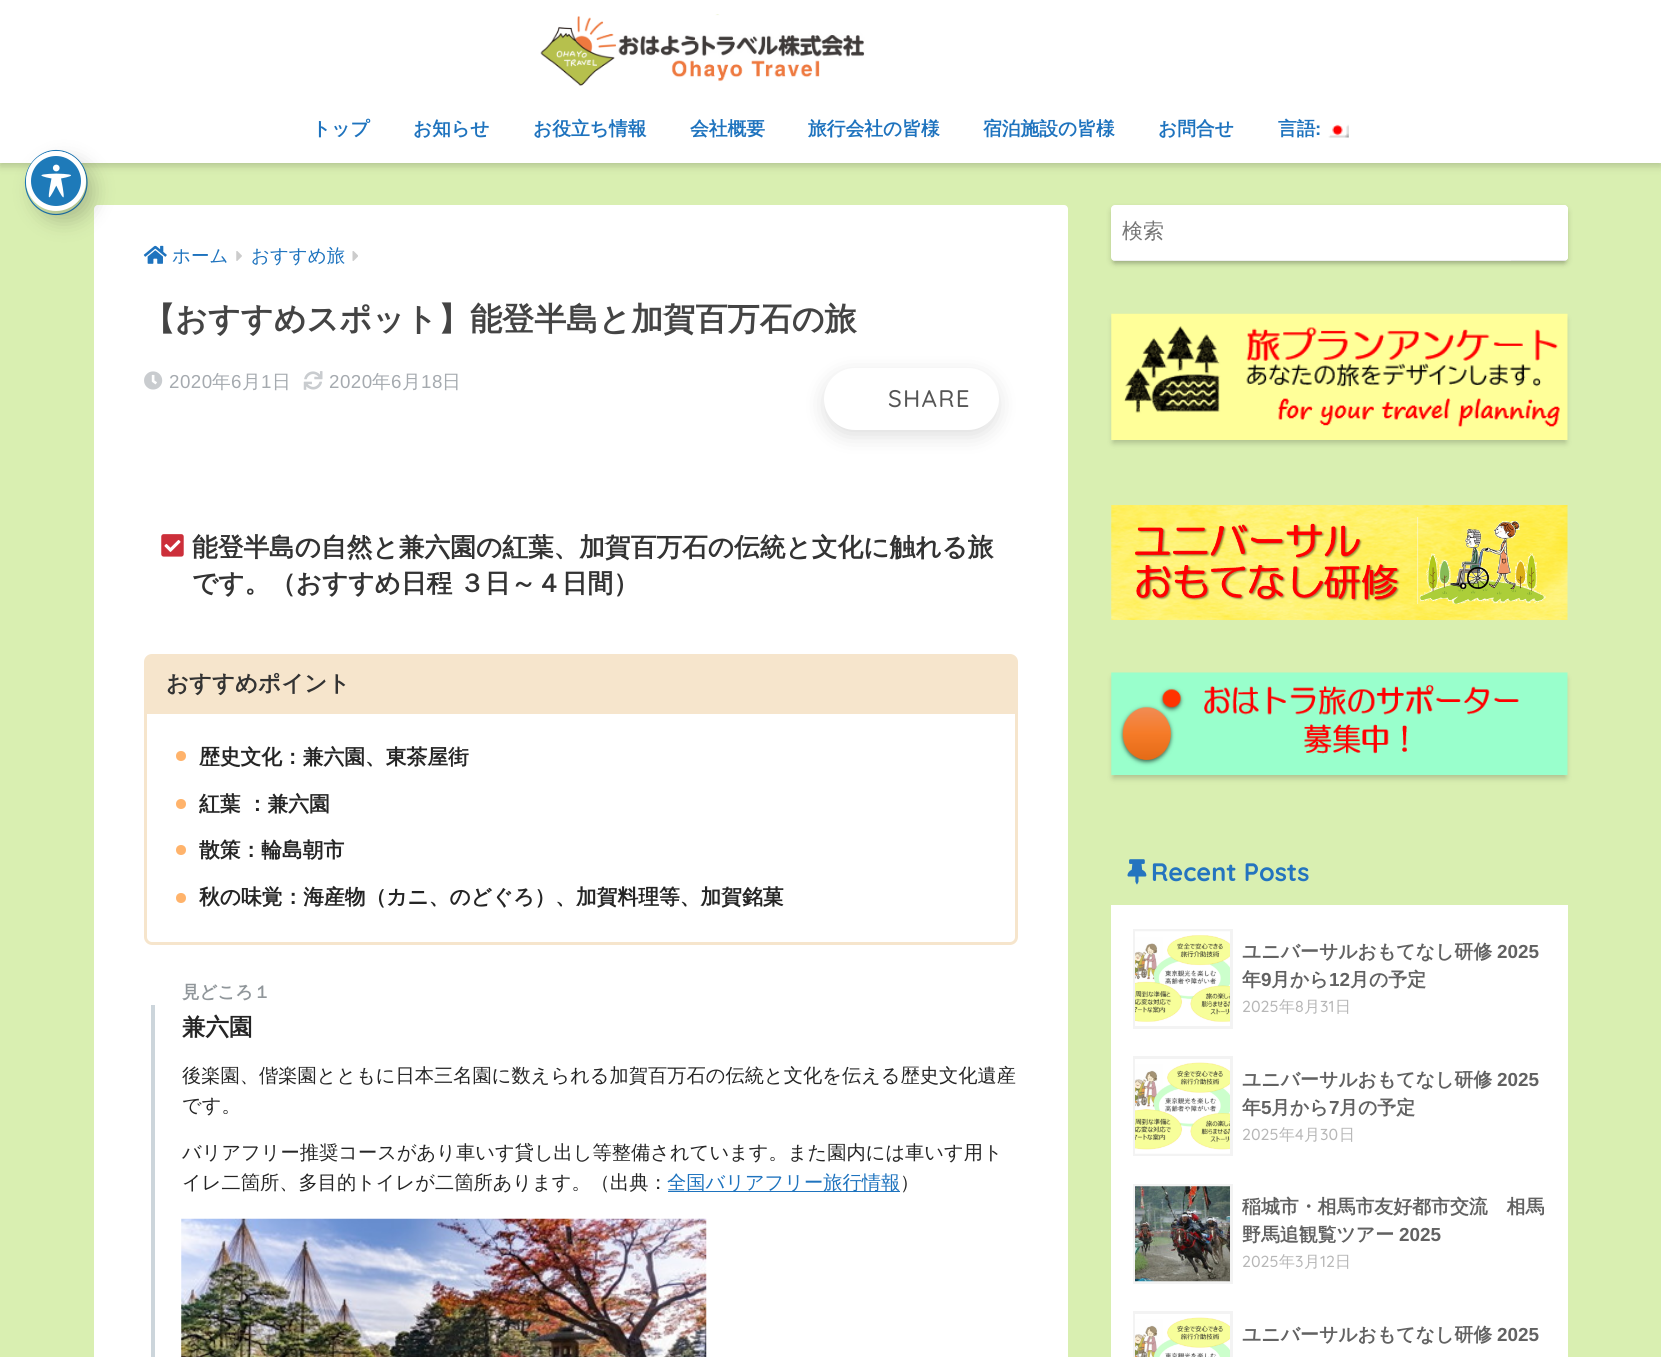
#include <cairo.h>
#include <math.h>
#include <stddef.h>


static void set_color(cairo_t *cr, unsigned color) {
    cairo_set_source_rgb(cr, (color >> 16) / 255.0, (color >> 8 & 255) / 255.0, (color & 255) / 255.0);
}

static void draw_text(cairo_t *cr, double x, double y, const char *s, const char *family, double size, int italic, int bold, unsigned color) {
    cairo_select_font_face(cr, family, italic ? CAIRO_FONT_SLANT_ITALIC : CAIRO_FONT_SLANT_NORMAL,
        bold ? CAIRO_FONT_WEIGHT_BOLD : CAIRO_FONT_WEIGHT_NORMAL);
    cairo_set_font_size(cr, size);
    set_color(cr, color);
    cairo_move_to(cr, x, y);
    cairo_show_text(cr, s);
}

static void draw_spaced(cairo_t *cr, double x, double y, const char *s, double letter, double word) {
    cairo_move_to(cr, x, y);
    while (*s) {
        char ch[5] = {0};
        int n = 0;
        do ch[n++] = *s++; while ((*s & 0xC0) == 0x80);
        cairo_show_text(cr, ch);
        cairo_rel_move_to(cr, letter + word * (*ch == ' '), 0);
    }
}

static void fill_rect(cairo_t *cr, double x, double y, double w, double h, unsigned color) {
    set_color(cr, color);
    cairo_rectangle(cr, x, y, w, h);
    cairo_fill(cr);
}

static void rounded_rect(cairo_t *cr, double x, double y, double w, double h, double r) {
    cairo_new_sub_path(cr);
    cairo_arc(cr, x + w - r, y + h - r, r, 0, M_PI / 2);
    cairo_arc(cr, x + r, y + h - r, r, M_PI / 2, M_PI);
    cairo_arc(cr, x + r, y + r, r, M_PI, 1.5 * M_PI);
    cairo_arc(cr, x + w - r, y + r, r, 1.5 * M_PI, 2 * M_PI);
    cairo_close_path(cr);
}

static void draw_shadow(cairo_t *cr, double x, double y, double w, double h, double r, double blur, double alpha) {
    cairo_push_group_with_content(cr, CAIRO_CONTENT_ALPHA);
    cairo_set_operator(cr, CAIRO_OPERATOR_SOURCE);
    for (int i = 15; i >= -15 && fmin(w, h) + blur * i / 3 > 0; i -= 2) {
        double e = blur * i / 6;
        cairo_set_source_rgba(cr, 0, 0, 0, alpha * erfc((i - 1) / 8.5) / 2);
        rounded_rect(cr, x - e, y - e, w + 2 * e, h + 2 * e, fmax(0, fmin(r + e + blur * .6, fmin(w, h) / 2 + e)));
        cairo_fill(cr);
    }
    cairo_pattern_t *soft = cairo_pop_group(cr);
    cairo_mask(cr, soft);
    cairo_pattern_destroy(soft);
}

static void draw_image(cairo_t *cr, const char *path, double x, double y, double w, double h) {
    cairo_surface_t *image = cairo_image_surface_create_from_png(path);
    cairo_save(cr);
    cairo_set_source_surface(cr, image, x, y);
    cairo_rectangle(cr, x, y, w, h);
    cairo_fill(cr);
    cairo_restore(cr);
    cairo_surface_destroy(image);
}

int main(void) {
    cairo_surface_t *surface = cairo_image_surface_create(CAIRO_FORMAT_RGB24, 1661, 1357);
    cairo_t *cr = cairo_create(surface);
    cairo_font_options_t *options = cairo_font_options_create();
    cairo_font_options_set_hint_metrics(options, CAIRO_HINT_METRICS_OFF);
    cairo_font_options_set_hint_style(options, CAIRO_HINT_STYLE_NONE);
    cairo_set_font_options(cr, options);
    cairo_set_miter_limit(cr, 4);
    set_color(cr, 0xD9EFB1);
    cairo_paint(cr);
    set_color(cr, 0x000000);
    draw_shadow(cr, 0, 4, 1661, 162, 0, 4, 0.18);
    fill_rect(cr, 0, 0, 1661, 163, 0xFFFFFF);
    cairo_new_path(cr);
    cairo_move_to(cr, 56, 150.5);
    cairo_curve_to(cr, 73, 150.5, 87, 165, 87, 182.5);
    cairo_curve_to(cr, 87, 200, 73, 214.5, 56, 214.5);
    cairo_curve_to(cr, 39.5, 214.5, 25.5, 200, 25.5, 182.5);
    cairo_curve_to(cr, 25.5, 165, 39.5, 150.5, 56, 150.5);
    cairo_close_path(cr);
    set_color(cr, 0x1E7AB9);
    cairo_set_line_width(cr, 1.2);
    cairo_stroke(cr);
    set_color(cr, 0xFFFFFF);
    rounded_rect(cr, 94, 205, 974, 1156, 4);
    cairo_fill(cr);
    set_color(cr, 0x000000);
    draw_shadow(cr, 34, 161, 60, 60, 30, 10, 0.2);
    set_color(cr, 0x1E7AB9);
    cairo_arc(cr, 56, 181, 27.5, 0, 2 * M_PI);
    cairo_fill_preserve(cr);
    set_color(cr, 0xFFFFFF);
    cairo_set_line_width(cr, 5);
    cairo_stroke(cr);
    draw_image(cr, "assets/img1.png", 41, 164, 30, 34);
    draw_image(cr, "assets/img2.png", 540, 14, 325, 72);
    draw_text(cr, 312, 135, "トップ", "WenQuanYi Zen Hei", 18.75, 0, 1, 0x1E73BE);
    draw_text(cr, 413, 135, "お知らせ", "WenQuanYi Zen Hei", 18.75, 0, 1, 0x1E73BE);
    draw_text(cr, 533, 135, "お役立ち情報", "WenQuanYi Zen Hei", 18.75, 0, 1, 0x1E73BE);
    draw_text(cr, 690, 135, "会社概要", "WenQuanYi Zen Hei", 18.75, 0, 1, 0x1E73BE);
    draw_text(cr, 808, 135, "旅行会社の皆様", "WenQuanYi Zen Hei", 18.75, 0, 1, 0x1E73BE);
    draw_text(cr, 983, 135, "宿泊施設の皆様", "WenQuanYi Zen Hei", 18.75, 0, 1, 0x1E73BE);
    draw_text(cr, 1158, 135, "お問合せ", "WenQuanYi Zen Hei", 18.75, 0, 1, 0x1E73BE);
    draw_text(cr, 1278, 135, "言語", "WenQuanYi Zen Hei", 18.75, 0, 1, 0x1E73BE);
    draw_text(cr, 1315, 135, ":", "Liberation Sans", 18.75, 0, 1, 0x1E73BE);
    draw_image(cr, "assets/img3.png", 1328, 124, 21, 14);
    draw_image(cr, "assets/img4.png", 143, 245, 24, 19);
    draw_text(cr, 172, 262, "ホーム", "WenQuanYi Zen Hei Medium", 18.5, 0, 0, 0x1E73BE);
    draw_image(cr, "assets/img5.png", 236, 251, 6, 10);
    draw_text(cr, 251, 262, "おすすめ旅", "WenQuanYi Zen Hei Medium", 18.5, 0, 0, 0x1E73BE);
    draw_image(cr, "assets/img6.png", 352, 251, 6, 10);
    draw_text(cr, 143, 330, "【おすすめスポット】能登半島と加賀百万石の旅", "WenQuanYi Zen Hei", 32.1, 0, 1, 0x444444);
    draw_image(cr, "assets/img7.png", 144, 371, 19, 19);
    cairo_select_font_face(cr, "Liberation Sans", CAIRO_FONT_SLANT_NORMAL, CAIRO_FONT_WEIGHT_NORMAL);
    cairo_set_font_size(cr, 18.75);
    set_color(cr, 0xA5AAAF);
    draw_spaced(cr, 169, 388, "2020", 0.5, 0);
    cairo_select_font_face(cr, "WenQuanYi Zen Hei Medium", CAIRO_FONT_SLANT_NORMAL, CAIRO_FONT_WEIGHT_NORMAL);
    draw_spaced(cr, 212, 388, "年", 0.5, 0);
    cairo_select_font_face(cr, "Liberation Sans", CAIRO_FONT_SLANT_NORMAL, CAIRO_FONT_WEIGHT_NORMAL);
    draw_spaced(cr, 231, 388, "6", 0.5, 0);
    cairo_select_font_face(cr, "WenQuanYi Zen Hei Medium", CAIRO_FONT_SLANT_NORMAL, CAIRO_FONT_WEIGHT_NORMAL);
    draw_spaced(cr, 242, 388, "月", 0.5, 0);
    cairo_select_font_face(cr, "Liberation Sans", CAIRO_FONT_SLANT_NORMAL, CAIRO_FONT_WEIGHT_NORMAL);
    draw_spaced(cr, 261, 388, "1", 0.5, 0);
    cairo_select_font_face(cr, "WenQuanYi Zen Hei Medium", CAIRO_FONT_SLANT_NORMAL, CAIRO_FONT_WEIGHT_NORMAL);
    draw_spaced(cr, 272, 388, "日", 0.5, 0);
    draw_image(cr, "assets/img8.png", 303, 371, 20, 19);
    cairo_select_font_face(cr, "Liberation Sans", CAIRO_FONT_SLANT_NORMAL, CAIRO_FONT_WEIGHT_NORMAL);
    draw_spaced(cr, 329, 388, "2020", 0.5, 0);
    cairo_select_font_face(cr, "WenQuanYi Zen Hei Medium", CAIRO_FONT_SLANT_NORMAL, CAIRO_FONT_WEIGHT_NORMAL);
    draw_spaced(cr, 372, 388, "年", 0.5, 0);
    cairo_select_font_face(cr, "Liberation Sans", CAIRO_FONT_SLANT_NORMAL, CAIRO_FONT_WEIGHT_NORMAL);
    draw_spaced(cr, 391, 388, "6", 0.5, 0);
    cairo_select_font_face(cr, "WenQuanYi Zen Hei Medium", CAIRO_FONT_SLANT_NORMAL, CAIRO_FONT_WEIGHT_NORMAL);
    draw_spaced(cr, 402, 388, "月", 0.5, 0);
    cairo_select_font_face(cr, "Liberation Sans", CAIRO_FONT_SLANT_NORMAL, CAIRO_FONT_WEIGHT_NORMAL);
    draw_spaced(cr, 421, 388, "18", 0.5, 0);
    cairo_select_font_face(cr, "WenQuanYi Zen Hei Medium", CAIRO_FONT_SLANT_NORMAL, CAIRO_FONT_WEIGHT_NORMAL);
    draw_spaced(cr, 442, 388, "日", 0.5, 0);
    set_color(cr, 0x000000);
    draw_shadow(cr, 826, 376, 170, 58, 29, 11, 0.15);
    set_color(cr, 0xFFFFFF);
    rounded_rect(cr, 824, 368, 175, 62, 31);
    cairo_fill(cr);
    cairo_select_font_face(cr, "Quicksand Medium", CAIRO_FONT_SLANT_NORMAL, CAIRO_FONT_WEIGHT_NORMAL);
    cairo_set_font_size(cr, 24);
    set_color(cr, 0x555555);
    draw_spaced(cr, 888, 407, "SHARE", 1.25, 0);
    draw_image(cr, "assets/img9.png", 161, 534, 23, 23);
    draw_text(cr, 192, 556, "能登半島の自然と兼六園の紅葉、加賀百万石の伝統と文化に触れる旅", "WenQuanYi Zen Hei", 25.7, 0, 1, 0x333333);
    draw_text(cr, 192, 592, "です。", "WenQuanYi Zen Hei", 25.7, 0, 1, 0x333333);
    draw_spaced(cr, 270, 592, "（おすすめ日程 ３日～４日間）", 0, -1);
    set_color(cr, 0xF6E5CC);
    cairo_new_path(cr);
    cairo_move_to(cr, 152, 654);
    cairo_line_to(cr, 1010, 654);
    cairo_curve_to(cr, 1014.5, 654, 1018, 657.5, 1018, 662);
    cairo_line_to(cr, 1018, 714);
    cairo_line_to(cr, 144, 714);
    cairo_line_to(cr, 144, 662);
    cairo_curve_to(cr, 144, 657.5, 147.5, 654, 152, 654);
    cairo_close_path(cr);
    cairo_fill(cr);
    draw_text(cr, 166, 691, "おすすめポイント", "WenQuanYi Zen Hei", 22.5, 0, 1, 0x333333);
    set_color(cr, 0xFFFFFF);
    cairo_new_path(cr);
    cairo_move_to(cr, 145.5, 712.5);
    cairo_line_to(cr, 1016.5, 712.5);
    cairo_line_to(cr, 1016.5, 937);
    cairo_curve_to(cr, 1016.5, 940.5, 1013.5, 943.5, 1010, 943.5);
    cairo_line_to(cr, 152, 943.5);
    cairo_curve_to(cr, 148.5, 943.5, 145.5, 940.5, 145.5, 937);
    cairo_close_path(cr);
    cairo_fill_preserve(cr);
    set_color(cr, 0xF6E5CC);
    cairo_set_line_width(cr, 3);
    cairo_stroke(cr);
    set_color(cr, 0xFFB36B);
    cairo_arc(cr, 181, 756, 5, 0, 2 * M_PI);
    cairo_fill(cr);
    draw_text(cr, 199, 764, "歴史文化：兼六園、東茶屋街", "WenQuanYi Zen Hei", 20.75, 0, 1, 0x252525);
    set_color(cr, 0xFFB36B);
    cairo_new_path(cr);
    cairo_arc(cr, 181, 804, 5, 0, 2 * M_PI);
    cairo_fill(cr);
    draw_text(cr, 199, 811, "紅葉 ：兼六園", "WenQuanYi Zen Hei", 20.75, 0, 1, 0x252525);
    set_color(cr, 0xFFB36B);
    cairo_new_path(cr);
    cairo_arc(cr, 181, 850, 5, 0, 2 * M_PI);
    cairo_fill(cr);
    draw_text(cr, 199, 857, "散策：輪島朝市", "WenQuanYi Zen Hei", 20.75, 0, 1, 0x252525);
    set_color(cr, 0xFFB36B);
    cairo_new_path(cr);
    cairo_arc(cr, 181, 898, 5, 0, 2 * M_PI);
    cairo_fill(cr);
    draw_text(cr, 199, 904, "秋の味覚：海産物（カニ、のどぐろ）、加賀料理等、加賀銘菓", "WenQuanYi Zen Hei", 20.75, 0, 1, 0x252525);
    draw_text(cr, 182, 998, "見どころ１", "WenQuanYi Zen Hei", 17.5, 0, 1, 0x90969A);
    fill_rect(cr, 151, 1005, 4, 352, 0xCCD5DB);
    draw_text(cr, 182, 1035, "兼六園", "WenQuanYi Zen Hei", 23.5, 0, 1, 0x252525);
    draw_text(cr, 182, 1082, "後楽園、偕楽園とともに日本三名園に数えられる加賀百万石の伝統と文化を伝える歴史文化遺産", "WenQuanYi Zen Hei Medium", 19.25, 0, 0, 0x252525);
    draw_text(cr, 182, 1112, "です。", "WenQuanYi Zen Hei Medium", 19.25, 0, 0, 0x252525);
    draw_text(cr, 182, 1159, "バリアフリー推奨コースがあり車いす貸し出し等整備されています。また園内には車いす用ト", "WenQuanYi Zen Hei Medium", 19.25, 0, 0, 0x252525);
    draw_text(cr, 182, 1189, "イレ二箇所、多目的トイレが二箇所あります。（出典：", "WenQuanYi Zen Hei Medium", 19.25, 0, 0, 0x252525);
    fill_rect(cr, 668, 1191, 232, 1, 0x1E73BE);
    draw_text(cr, 667, 1189, "全国バリアフリー旅行情報", "WenQuanYi Zen Hei Medium", 19.25, 0, 0, 0x1E73BE);
    draw_text(cr, 900, 1189, "）", "WenQuanYi Zen Hei Medium", 19.25, 0, 0, 0x252525);
    draw_image(cr, "assets/img10.png", 181, 1218, 526, 139);
    set_color(cr, 0x000000);
    draw_shadow(cr, 1114, 211, 451, 52, 1, 2, 0.15);
    draw_shadow(cr, 1111, 208, 457, 56, 4, 3, 0.15);
    set_color(cr, 0xFFFFFF);
    rounded_rect(cr, 1111, 205, 457, 56, 4);
    cairo_fill(cr);
    fill_rect(cr, 1114, 260, 452, 1, 0xEFEFEF);
    draw_text(cr, 1122, 238, "検索", "WenQuanYi Zen Hei Medium", 21, 0, 0, 0x757575);
    set_color(cr, 0xFFFFFF);
    cairo_new_path(cr);
    cairo_move_to(cr, 1511, 205);
    cairo_line_to(cr, 1564, 205);
    cairo_curve_to(cr, 1566, 205, 1568, 207, 1568, 209);
    cairo_line_to(cr, 1568, 257);
    cairo_curve_to(cr, 1568, 259, 1566, 261, 1564, 261);
    cairo_line_to(cr, 1511, 261);
    cairo_close_path(cr);
    cairo_fill(cr);
    cairo_set_source_rgba(cr, 0, 0, 0, 0.1);
    cairo_rectangle(cr, 1511, 260, 55, 1);
    cairo_fill(cr);
    set_color(cr, 0x000000);
    draw_shadow(cr, 1113, 319, 453, 124, 0, 3, 0.2);
    draw_image(cr, "assets/img11.png", 1111, 313, 457, 127);
    draw_image(cr, "assets/img12.png", 1111, 505, 457, 115);
    draw_shadow(cr, 1113, 678, 453, 100, 0, 3, 0.2);
    draw_image(cr, "assets/img13.png", 1111, 672, 457, 103);
    fill_rect(cr, 1111, 905, 457, 452, 0xFFFFFF);
    draw_image(cr, "assets/img14.png", 1127, 859, 20, 26);
    draw_text(cr, 1151, 881, "Recent Posts", "Quicksand", 25.25, 0, 1, 0x2474BF);
    cairo_rectangle(cr, 1134.5, 930.5, 97, 97);
    set_color(cr, 0xF3F3F3);
    cairo_stroke(cr);
    draw_image(cr, "assets/img15.png", 1135, 931, 95, 95);
    draw_text(cr, 1242, 958, "ユニバーサルおもてなし研修", "WenQuanYi Zen Hei", 18.9, 0, 1, 0x626262);
    draw_text(cr, 1497, 958, "2025", "Liberation Sans", 18.9, 0, 1, 0x626262);
    draw_text(cr, 1242, 986, "年", "WenQuanYi Zen Hei", 18.9, 0, 1, 0x626262);
    draw_text(cr, 1261, 986, "9", "Liberation Sans", 18.9, 0, 1, 0x626262);
    draw_text(cr, 1271, 986, "月から", "WenQuanYi Zen Hei", 18.9, 0, 1, 0x626262);
    draw_text(cr, 1329, 986, "12", "Liberation Sans", 18.9, 0, 1, 0x626262);
    draw_text(cr, 1350, 986, "月の予定", "WenQuanYi Zen Hei", 18.9, 0, 1, 0x626262);
    draw_text(cr, 1242, 1012, "2025", "Quicksand Medium", 16, 0, 0, 0xB7B7B7);
    draw_text(cr, 1279, 1012, "年", "WenQuanYi Zen Hei Medium", 16, 0, 0, 0xB7B7B7);
    draw_text(cr, 1295, 1012, "8", "Quicksand Medium", 16, 0, 0, 0xB7B7B7);
    draw_text(cr, 1304, 1012, "月", "WenQuanYi Zen Hei Medium", 16, 0, 0, 0xB7B7B7);
    draw_text(cr, 1320, 1012, "31", "Quicksand Medium", 16, 0, 0, 0xB7B7B7);
    draw_text(cr, 1335, 1012, "日", "WenQuanYi Zen Hei Medium", 16, 0, 0, 0xB7B7B7);
    cairo_rectangle(cr, 1134.5, 1057.5, 97, 97);
    set_color(cr, 0xF3F3F3);
    cairo_stroke(cr);
    draw_image(cr, "assets/img16.png", 1135, 1059, 95, 95);
    draw_text(cr, 1242, 1086, "ユニバーサルおもてなし研修", "WenQuanYi Zen Hei", 18.9, 0, 1, 0x626262);
    draw_text(cr, 1497, 1086, "2025", "Liberation Sans", 18.9, 0, 1, 0x626262);
    draw_text(cr, 1242, 1114, "年", "WenQuanYi Zen Hei", 18.9, 0, 1, 0x626262);
    draw_text(cr, 1261, 1114, "5", "Liberation Sans", 18.9, 0, 1, 0x626262);
    draw_text(cr, 1271, 1114, "月から", "WenQuanYi Zen Hei", 18.9, 0, 1, 0x626262);
    draw_text(cr, 1329, 1114, "7", "Liberation Sans", 18.9, 0, 1, 0x626262);
    draw_text(cr, 1339, 1114, "月の予定", "WenQuanYi Zen Hei", 18.9, 0, 1, 0x626262);
    draw_text(cr, 1242, 1140, "2025", "Quicksand Medium", 16, 0, 0, 0xB7B7B7);
    draw_text(cr, 1279, 1140, "年", "WenQuanYi Zen Hei Medium", 16, 0, 0, 0xB7B7B7);
    draw_text(cr, 1295, 1140, "4", "Quicksand Medium", 16, 0, 0, 0xB7B7B7);
    draw_text(cr, 1304, 1140, "月", "WenQuanYi Zen Hei Medium", 16, 0, 0, 0xB7B7B7);
    draw_text(cr, 1320, 1140, "30", "Quicksand Medium", 16, 0, 0, 0xB7B7B7);
    draw_text(cr, 1339, 1140, "日", "WenQuanYi Zen Hei Medium", 16, 0, 0, 0xB7B7B7);
    cairo_rectangle(cr, 1134.5, 1185.5, 97, 97);
    set_color(cr, 0xF3F3F3);
    cairo_stroke(cr);
    draw_image(cr, "assets/img17.png", 1135, 1186, 95, 96);
    draw_text(cr, 1242, 1213, "稲城市・相馬市友好都市交流　相馬", "WenQuanYi Zen Hei", 18.9, 0, 1, 0x626262);
    draw_text(cr, 1242, 1241, "野馬追観覧ツアー", "WenQuanYi Zen Hei", 18.9, 0, 1, 0x626262);
    draw_text(cr, 1399, 1241, "2025", "Liberation Sans", 18.9, 0, 1, 0x626262);
    draw_text(cr, 1242, 1267, "2025", "Quicksand Medium", 16, 0, 0, 0xB7B7B7);
    draw_text(cr, 1279, 1267, "年", "WenQuanYi Zen Hei Medium", 16, 0, 0, 0xB7B7B7);
    draw_text(cr, 1295, 1267, "3", "Quicksand Medium", 16, 0, 0, 0xB7B7B7);
    draw_text(cr, 1304, 1267, "月", "WenQuanYi Zen Hei Medium", 16, 0, 0, 0xB7B7B7);
    draw_text(cr, 1320, 1267, "12", "Quicksand Medium", 16, 0, 0, 0xB7B7B7);
    draw_text(cr, 1335, 1267, "日", "WenQuanYi Zen Hei Medium", 16, 0, 0, 0xB7B7B7);
    cairo_rectangle(cr, 1134.5, 1312.5, 97, 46);
    set_color(cr, 0xF3F3F3);
    cairo_stroke(cr);
    draw_image(cr, "assets/img18.png", 1135, 1314, 95, 43);
    draw_text(cr, 1242, 1341, "ユニバーサルおもてなし研修", "WenQuanYi Zen Hei", 18.9, 0, 1, 0x626262);
    draw_text(cr, 1497, 1341, "2025", "Liberation Sans", 18.9, 0, 1, 0x626262);
    cairo_surface_write_to_png(surface, "output.png");
    cairo_font_options_destroy(options);
    cairo_destroy(cr);
    cairo_surface_destroy(surface);
    return 0;
}
